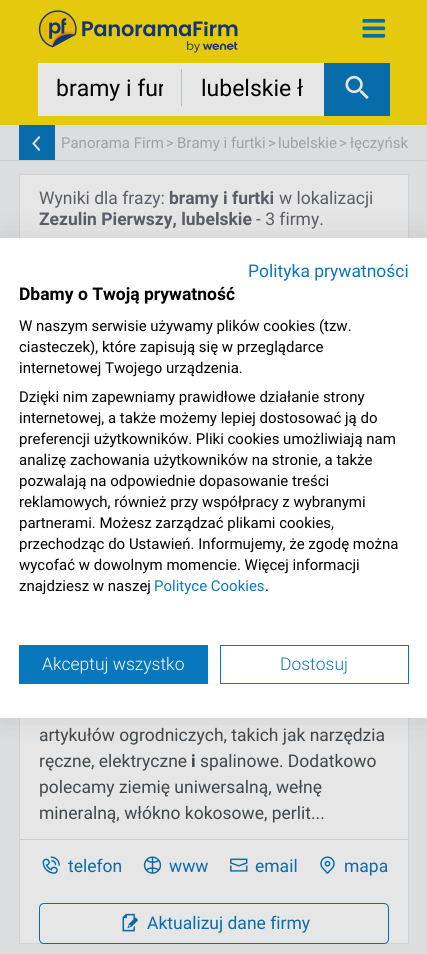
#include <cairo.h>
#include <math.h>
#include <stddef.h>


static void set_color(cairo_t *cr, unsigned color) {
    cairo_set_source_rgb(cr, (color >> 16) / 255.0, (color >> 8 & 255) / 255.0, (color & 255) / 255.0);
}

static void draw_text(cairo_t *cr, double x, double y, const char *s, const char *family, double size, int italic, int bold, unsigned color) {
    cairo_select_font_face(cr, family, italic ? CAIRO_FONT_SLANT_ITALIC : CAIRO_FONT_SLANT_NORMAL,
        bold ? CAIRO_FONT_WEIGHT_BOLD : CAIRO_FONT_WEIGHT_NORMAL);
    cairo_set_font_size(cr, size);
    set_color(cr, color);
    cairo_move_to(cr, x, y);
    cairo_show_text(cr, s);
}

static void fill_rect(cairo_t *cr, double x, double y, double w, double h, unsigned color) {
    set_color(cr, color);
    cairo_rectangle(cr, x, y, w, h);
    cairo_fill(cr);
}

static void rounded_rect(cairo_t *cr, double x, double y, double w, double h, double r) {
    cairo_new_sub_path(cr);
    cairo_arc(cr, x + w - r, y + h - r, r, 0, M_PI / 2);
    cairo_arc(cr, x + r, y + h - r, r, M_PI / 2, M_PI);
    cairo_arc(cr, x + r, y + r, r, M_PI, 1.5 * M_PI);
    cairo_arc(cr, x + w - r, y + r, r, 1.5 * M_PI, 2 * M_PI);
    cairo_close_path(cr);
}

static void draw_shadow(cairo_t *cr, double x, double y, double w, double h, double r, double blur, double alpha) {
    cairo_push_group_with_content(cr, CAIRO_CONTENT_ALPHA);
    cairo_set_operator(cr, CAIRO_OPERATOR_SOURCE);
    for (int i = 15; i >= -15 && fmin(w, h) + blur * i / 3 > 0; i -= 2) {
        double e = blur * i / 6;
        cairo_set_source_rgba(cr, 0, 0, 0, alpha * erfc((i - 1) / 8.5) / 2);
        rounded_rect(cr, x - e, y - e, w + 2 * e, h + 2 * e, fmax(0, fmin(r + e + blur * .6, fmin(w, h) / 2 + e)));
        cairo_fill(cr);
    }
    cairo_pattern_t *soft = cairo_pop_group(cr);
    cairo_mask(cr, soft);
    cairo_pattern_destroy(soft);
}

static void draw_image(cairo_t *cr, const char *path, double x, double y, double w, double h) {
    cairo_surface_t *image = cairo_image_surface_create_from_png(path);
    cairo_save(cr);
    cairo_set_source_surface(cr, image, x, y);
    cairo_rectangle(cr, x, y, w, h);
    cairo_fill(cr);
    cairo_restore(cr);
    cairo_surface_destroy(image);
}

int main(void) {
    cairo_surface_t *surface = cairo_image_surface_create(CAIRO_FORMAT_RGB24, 427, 954);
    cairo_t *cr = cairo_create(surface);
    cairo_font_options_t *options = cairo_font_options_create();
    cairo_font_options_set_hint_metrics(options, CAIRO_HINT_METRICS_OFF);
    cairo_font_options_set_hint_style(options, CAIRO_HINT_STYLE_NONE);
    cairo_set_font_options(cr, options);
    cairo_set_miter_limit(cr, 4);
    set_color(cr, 0xDCDDDF);
    cairo_paint(cr);
    fill_rect(cr, 0, 0, 427, 125, 0xE4C90D);
    draw_image(cr, "assets/img1.png", 38, 10, 200, 43);
    draw_image(cr, "assets/img2.png", 362, 18, 23, 20);
    fill_rect(cr, 38, 63, 286, 53, 0xE6E6E6);
    cairo_save(cr);
    cairo_rectangle(cr, 56, 75, 107, 26);
    cairo_clip(cr);
    draw_text(cr, 56, 96, "bramy i fur", "Roboto", 23, 0, 0, 0x000000);
    cairo_restore(cr);
    fill_rect(cr, 181, 69, 1, 37, 0xB4C1C7);
    draw_text(cr, 201, 96, "lubelskie ł", "Roboto", 23, 0, 0, 0x000000);
    fill_rect(cr, 324, 63, 66, 53, 0x086BAA);
    draw_image(cr, "assets/img3.png", 345, 75, 24, 24);
    fill_rect(cr, 0, 160, 427, 1, 0xC8CBCF);
    fill_rect(cr, 19, 125, 36, 35, 0x086BAA);
    draw_image(cr, "assets/img4.png", 32, 136, 9, 15);
    draw_text(cr, 61, 148, "Panorama Firm", "Roboto", 15, 0, 0, 0x99A3AA);
    draw_text(cr, 166, 148, ">", "Roboto", 15, 0, 0, 0x99A3AA);
    draw_text(cr, 177, 148, "Bramy i furtki", "Roboto", 15, 0, 0, 0x99A3AA);
    draw_text(cr, 268, 148, ">", "Roboto", 15, 0, 0, 0x99A3AA);
    draw_text(cr, 278, 148, "lubelskie", "Roboto", 15, 0, 0, 0x99A3AA);
    draw_text(cr, 339, 148, ">", "Roboto", 15, 0, 0, 0x99A3AA);
    draw_text(cr, 350, 148, "łęczyńsk", "Roboto", 15, 0, 0, 0x99A3AA);
    fill_rect(cr, 20, 175, 388, 63, 0xE6E6E6);
    cairo_rectangle(cr, 19.5, 174.5, 389, 189);
    set_color(cr, 0xD1D2D3);
    cairo_set_line_width(cr, 1);
    cairo_stroke(cr);
    draw_text(cr, 39, 204, "Wyniki dla frazy:", "Roboto", 17.5, 0, 0, 0x595E68);
    draw_text(cr, 169, 204, "bramy i furtki", "Roboto", 17.5, 0, 1, 0x595E68);
    draw_text(cr, 279, 204, "w lokalizacji", "Roboto", 17.5, 0, 0, 0x595E68);
    draw_text(cr, 39, 225, "Zezulin Pierwszy, lubelskie", "Roboto", 17.5, 0, 1, 0x595E68);
    draw_text(cr, 256, 225, "- 3 firmy.", "Roboto", 17.5, 0, 0, 0x595E68);
    fill_rect(cr, 20, 718, 388, 225, 0xE6E6E6);
    cairo_rectangle(cr, 19.5, 376.5, 389, 567);
    set_color(cr, 0xD1D2D3);
    cairo_stroke(cr);
    draw_text(cr, 39, 741, "artykułów ogrodniczych, takich jak narzędzia", "Roboto", 17.5, 0, 0, 0x3E484E);
    draw_text(cr, 39, 767, "ręczne, elektryczne", "Roboto", 17.5, 0, 0, 0x3E484E);
    draw_text(cr, 191, 767, "i", "Roboto", 17.5, 0, 1, 0x3E484E);
    draw_text(cr, 200, 767, "spalinowe. Dodatkowo", "Roboto", 17.5, 0, 0, 0x3E484E);
    draw_text(cr, 39, 793, "polecamy ziemię uniwersalną, wełnę", "Roboto", 17.5, 0, 0, 0x3E484E);
    draw_text(cr, 39, 819, "mineralną, włókno kokosowe, perlit...", "Roboto", 17.5, 0, 0, 0x3E484E);
    fill_rect(cr, 20, 839, 388, 1, 0xC8CBCF);
    draw_image(cr, "assets/img5.png", 42, 856, 18, 18);
    draw_text(cr, 68, 872, "telefon", "Roboto", 17.5, 0, 0, 0x086BAA);
    draw_image(cr, "assets/img6.png", 143, 856, 19, 18);
    draw_text(cr, 169, 872, "www", "Roboto", 17.5, 0, 0, 0x086BAA);
    draw_image(cr, "assets/img7.png", 230, 858, 18, 14);
    draw_text(cr, 255, 872, "email", "Roboto", 17.5, 0, 0, 0x086BAA);
    draw_image(cr, "assets/img8.png", 320, 856, 15, 18);
    draw_text(cr, 344, 872, "mapa", "Roboto", 17.5, 0, 0, 0x086BAA);
    rounded_rect(cr, 39.5, 903.5, 349, 40, 4.5);
    cairo_stroke(cr);
    draw_image(cr, "assets/img9.png", 122, 913, 17, 19);
    draw_text(cr, 147, 929, "Aktualizuj dane firmy", "Roboto", 17.5, 0, 0, 0x086BAA);
    set_color(cr, 0x000000);
    draw_shadow(cr, 0, 238, 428, 480, 0, 15, 0.1);
    fill_rect(cr, 0, 238, 427, 480, 0xFFFFFF);
    draw_text(cr, 248, 277, "Polityka prywatności", "Roboto", 17.5, 0, 0, 0x0977BD);
    draw_text(cr, 19, 300, "Dbamy o Twoją prywatność", "Roboto", 17.5, 0, 1, 0x000000);
    draw_text(cr, 19, 331, "W naszym serwisie używamy plików cookies (tzw.", "Roboto", 15, 0, 0, 0x000000);
    draw_text(cr, 19, 352, "ciasteczek), które zapisują się w przeglądarce", "Roboto", 15, 0, 0, 0x000000);
    draw_text(cr, 19, 373, "internetowej Twojego urządzenia.", "Roboto", 15, 0, 0, 0x000000);
    draw_text(cr, 19, 402, "Dzięki nim zapewniamy prawidłowe działanie strony", "Roboto", 15, 0, 0, 0x000000);
    draw_text(cr, 19, 423, "internetowej, a także możemy lepiej dostosować ją do", "Roboto", 15, 0, 0, 0x000000);
    draw_text(cr, 19, 444, "preferencji użytkowników. Pliki cookies umożliwiają nam", "Roboto", 15, 0, 0, 0x000000);
    draw_text(cr, 19, 465, "analizę zachowania użytkowników na stronie, a także", "Roboto", 15, 0, 0, 0x000000);
    draw_text(cr, 19, 486, "pozwalają na odpowiednie dopasowanie treści", "Roboto", 15, 0, 0, 0x000000);
    draw_text(cr, 19, 507, "reklamowych, również przy współpracy z wybranymi", "Roboto", 15, 0, 0, 0x000000);
    draw_text(cr, 19, 528, "partnerami. Możesz zarządzać plikami cookies,", "Roboto", 15, 0, 0, 0x000000);
    draw_text(cr, 19, 549, "przechodząc do Ustawień. Informujemy, że zgodę można", "Roboto", 15, 0, 0, 0x000000);
    draw_text(cr, 19, 570, "wycofać w dowolnym momencie. Więcej informacji", "Roboto", 15, 0, 0, 0x000000);
    draw_text(cr, 19, 591, "znajdziesz w naszej", "Roboto", 15, 0, 0, 0x000000);
    draw_text(cr, 154, 591, "Polityce Cookies", "Roboto", 15, 0, 0, 0x0977BD);
    draw_text(cr, 265, 591, ".", "Roboto", 15, 0, 0, 0x000000);
    fill_rect(cr, 19, 645, 189, 39, 0x0977BD);
    draw_text(cr, 42, 670, "Akceptuj wszystko", "Roboto Light", 17.5, 0, 0, 0xFFFFFF);
    cairo_rectangle(cr, 220.5, 645.5, 188, 38);
    set_color(cr, 0x0977BD);
    cairo_stroke(cr);
    draw_text(cr, 280, 670, "Dostosuj", "Roboto Light", 17.5, 0, 0, 0x0977BD);
    cairo_surface_write_to_png(surface, "output.png");
    cairo_font_options_destroy(options);
    cairo_destroy(cr);
    cairo_surface_destroy(surface);
    return 0;
}
